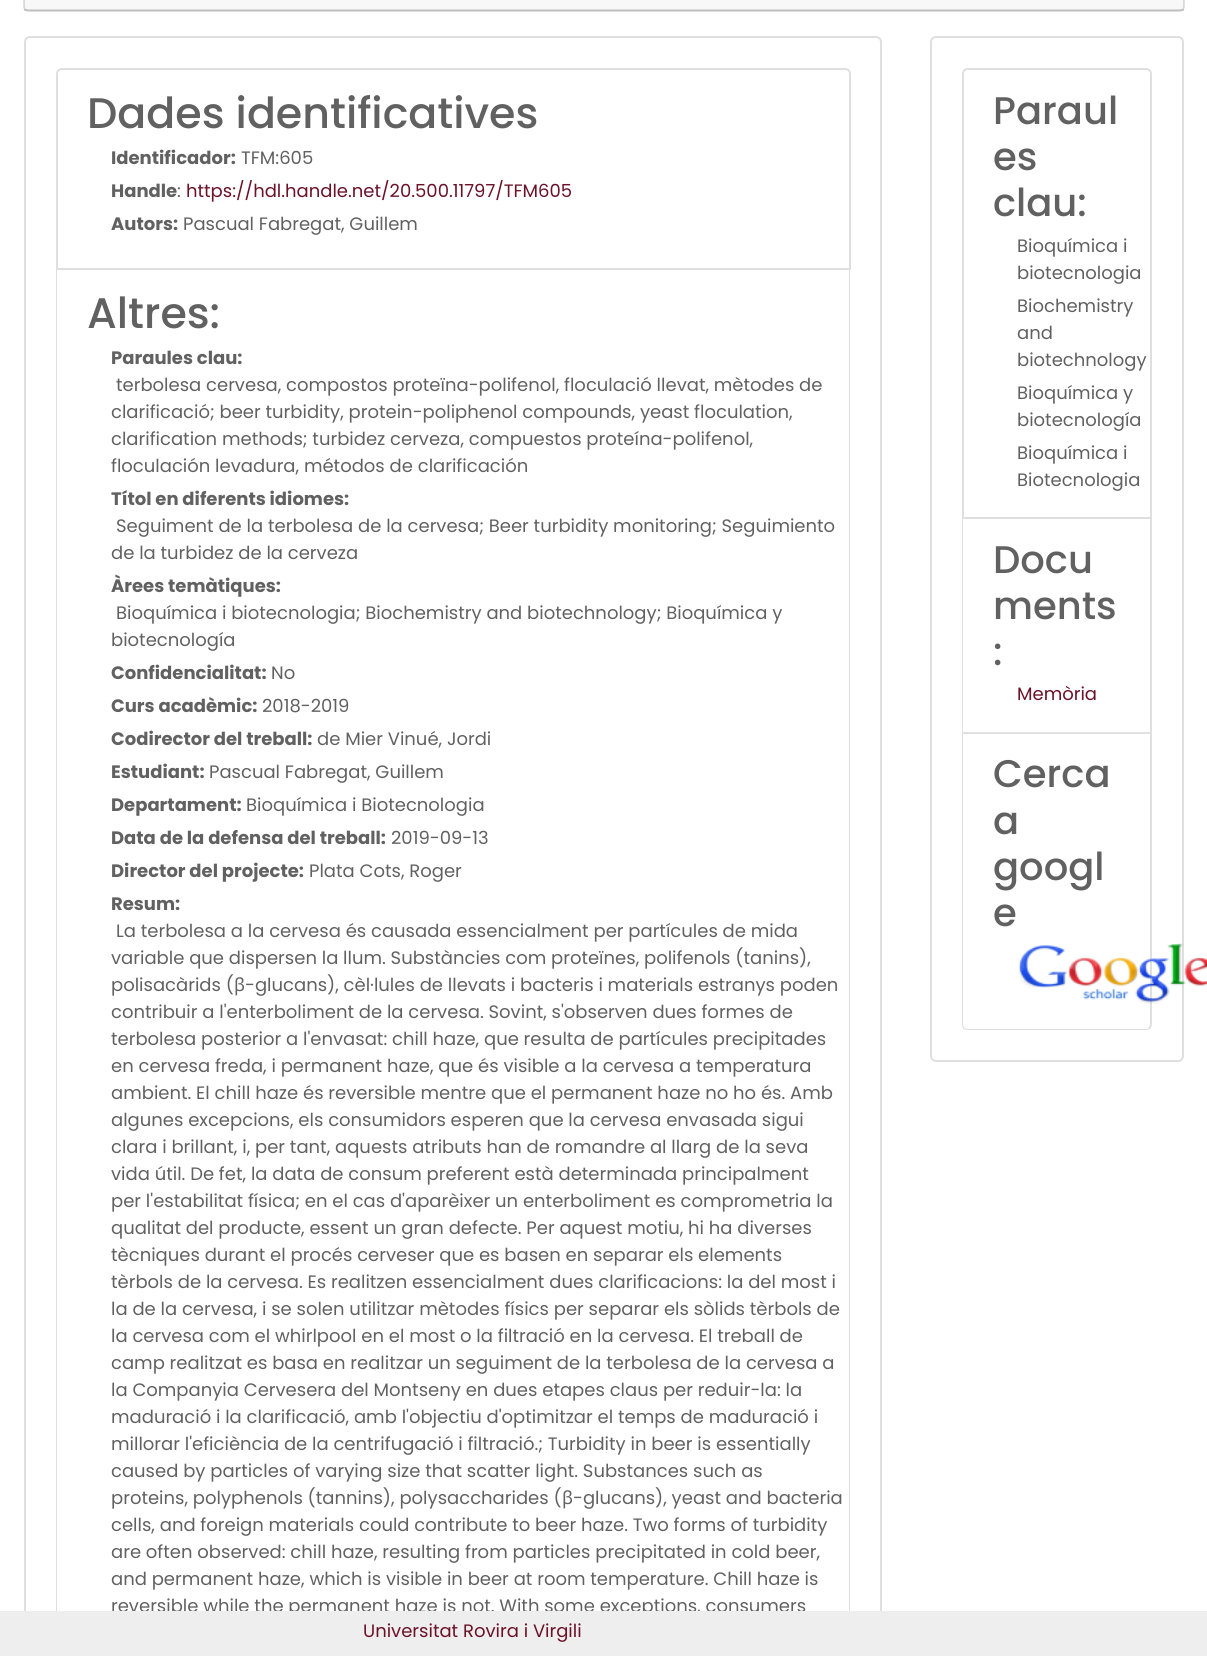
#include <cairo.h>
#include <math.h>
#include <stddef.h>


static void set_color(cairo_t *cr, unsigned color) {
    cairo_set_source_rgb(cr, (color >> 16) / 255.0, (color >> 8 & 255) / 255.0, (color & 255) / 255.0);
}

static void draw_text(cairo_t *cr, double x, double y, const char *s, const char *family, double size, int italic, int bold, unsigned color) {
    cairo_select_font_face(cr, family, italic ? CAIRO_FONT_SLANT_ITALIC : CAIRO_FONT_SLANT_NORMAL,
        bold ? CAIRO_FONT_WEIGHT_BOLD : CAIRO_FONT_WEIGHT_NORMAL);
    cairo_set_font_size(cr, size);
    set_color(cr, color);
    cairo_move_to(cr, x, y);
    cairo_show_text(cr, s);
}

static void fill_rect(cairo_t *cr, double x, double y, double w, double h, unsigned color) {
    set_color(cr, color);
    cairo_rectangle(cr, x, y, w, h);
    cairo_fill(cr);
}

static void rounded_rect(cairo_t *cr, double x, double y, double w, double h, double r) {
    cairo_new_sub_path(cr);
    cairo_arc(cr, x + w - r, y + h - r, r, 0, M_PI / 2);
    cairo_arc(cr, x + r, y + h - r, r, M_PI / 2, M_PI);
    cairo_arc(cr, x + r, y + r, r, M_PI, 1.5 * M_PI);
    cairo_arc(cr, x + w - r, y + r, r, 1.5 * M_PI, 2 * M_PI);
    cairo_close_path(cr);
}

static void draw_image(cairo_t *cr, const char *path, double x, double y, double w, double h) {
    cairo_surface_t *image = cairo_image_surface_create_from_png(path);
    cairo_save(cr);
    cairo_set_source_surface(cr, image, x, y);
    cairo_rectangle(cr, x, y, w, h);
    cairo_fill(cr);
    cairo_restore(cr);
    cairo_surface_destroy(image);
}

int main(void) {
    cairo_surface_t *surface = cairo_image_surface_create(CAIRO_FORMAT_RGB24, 1207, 1656);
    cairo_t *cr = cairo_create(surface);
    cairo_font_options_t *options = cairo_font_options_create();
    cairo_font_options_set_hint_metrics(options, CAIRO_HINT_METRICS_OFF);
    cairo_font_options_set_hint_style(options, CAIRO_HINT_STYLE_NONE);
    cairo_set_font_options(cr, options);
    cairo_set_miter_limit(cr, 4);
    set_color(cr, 0xFFFFFF);
    cairo_paint(cr);
    rounded_rect(cr, 24, -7, 1160, 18, 5);
    set_color(cr, 0xDFDFDF);
    cairo_stroke(cr);
    cairo_set_source_rgba(cr, 0, 0, 0, 0.03);
    cairo_rectangle(cr, 24, 0, 1160, 11);
    cairo_fill(cr);
    cairo_set_source_rgba(cr, 0, 0, 0, 0.12);
    cairo_rectangle(cr, 24, 9, 1160, 2);
    cairo_fill(cr);
    rounded_rect(cr, 25, 37, 856, 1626, 5);
    set_color(cr, 0xDFDFDF);
    cairo_stroke(cr);
    cairo_new_path(cr);
    cairo_move_to(cr, 62, 69);
    cairo_line_to(cr, 845, 69);
    cairo_curve_to(cr, 848, 69, 850, 71, 850, 74);
    cairo_line_to(cr, 850, 269);
    cairo_line_to(cr, 57, 269);
    cairo_line_to(cr, 57, 74);
    cairo_curve_to(cr, 57, 71, 59, 69, 62, 69);
    cairo_close_path(cr);
    cairo_stroke(cr);
    draw_text(cr, 87, 128, "Dades identificatives", "Poppins Medium", 42.75, 0, 0, 0x616161);
    draw_text(cr, 111, 164, "Identificador:", "Poppins", 18, 0, 1, 0x616161);
    draw_text(cr, 241, 164, "TFM:605", "Poppins", 18, 0, 0, 0x616161);
    draw_text(cr, 111, 197, "Handle", "Poppins", 18, 0, 1, 0x616161);
    draw_text(cr, 177, 197, ":", "Poppins", 18, 0, 0, 0x616161);
    draw_text(cr, 186, 197, "https://hdl.handle.net/20.500.11797/TFM605", "Poppins", 18, 0, 0, 0x6B1229);
    draw_text(cr, 111, 230, "Autors:", "Poppins", 18, 0, 1, 0x616161);
    draw_text(cr, 183, 230, "Pascual Fabregat, Guillem", "Poppins", 18, 0, 0, 0x616161);
    set_color(cr, 0xDFDFDF);
    cairo_set_fill_rule(cr, CAIRO_FILL_RULE_EVEN_ODD);
    cairo_new_path(cr);
    cairo_move_to(cr, 56, 270);
    cairo_line_to(cr, 850, 270);
    cairo_line_to(cr, 850, 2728);
    cairo_curve_to(cr, 850, 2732, 848, 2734, 844, 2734);
    cairo_line_to(cr, 62, 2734);
    cairo_curve_to(cr, 58, 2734, 56, 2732, 56, 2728);
    cairo_close_path(cr);
    cairo_move_to(cr, 57, 270);
    cairo_line_to(cr, 849, 270);
    cairo_line_to(cr, 849, 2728);
    cairo_curve_to(cr, 849, 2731, 847, 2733, 844, 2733);
    cairo_line_to(cr, 62, 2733);
    cairo_curve_to(cr, 59, 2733, 57, 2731, 57, 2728);
    cairo_close_path(cr);
    cairo_fill(cr);
    draw_text(cr, 87, 328, "Altres:", "Poppins Medium", 42.75, 0, 0, 0x616161);
    draw_text(cr, 111, 364, "Paraules clau:", "Poppins", 18, 0, 1, 0x616161);
    draw_text(cr, 116, 391, "terbolesa cervesa, compostos proteïna-polifenol, floculació llevat, mètodes de", "Poppins", 18, 0, 0, 0x616161);
    draw_text(cr, 111, 418, "clarificació; beer turbidity, protein-poliphenol compounds, yeast floculation,", "Poppins", 18, 0, 0, 0x616161);
    draw_text(cr, 111, 445, "clarification methods; turbidez cerveza, compuestos proteína-polifenol,", "Poppins", 18, 0, 0, 0x616161);
    draw_text(cr, 111, 472, "floculación levadura, métodos de clarificación", "Poppins", 18, 0, 0, 0x616161);
    draw_text(cr, 111, 505, "Títol en diferents idiomes:", "Poppins", 18, 0, 1, 0x616161);
    draw_text(cr, 116, 532, "Seguiment de la terbolesa de la cervesa; Beer turbidity monitoring; Seguimiento", "Poppins", 18, 0, 0, 0x616161);
    draw_text(cr, 111, 559, "de la turbidez de la cerveza", "Poppins", 18, 0, 0, 0x616161);
    draw_text(cr, 111, 592, "Àrees temàtiques:", "Poppins", 18, 0, 1, 0x616161);
    draw_text(cr, 116, 619, "Bioquímica i biotecnologia; Biochemistry and biotechnology; Bioquímica y", "Poppins", 18, 0, 0, 0x616161);
    draw_text(cr, 111, 646, "biotecnología", "Poppins", 18, 0, 0, 0x616161);
    draw_text(cr, 111, 679, "Confidencialitat:", "Poppins", 18, 0, 1, 0x616161);
    draw_text(cr, 271, 679, "No", "Poppins", 18, 0, 0, 0x616161);
    draw_text(cr, 111, 712, "Curs acadèmic:", "Poppins", 18, 0, 1, 0x616161);
    draw_text(cr, 262, 712, "2018-2019", "Poppins", 18, 0, 0, 0x616161);
    draw_text(cr, 111, 745, "Codirector del treball:", "Poppins", 18, 0, 1, 0x616161);
    draw_text(cr, 317, 745, "de Mier Vinué, Jordi", "Poppins", 18, 0, 0, 0x616161);
    draw_text(cr, 111, 778, "Estudiant:", "Poppins", 18, 0, 1, 0x616161);
    draw_text(cr, 209, 778, "Pascual Fabregat, Guillem", "Poppins", 18, 0, 0, 0x616161);
    draw_text(cr, 111, 811, "Departament:", "Poppins", 18, 0, 1, 0x616161);
    draw_text(cr, 246, 811, "Bioquímica i Biotecnologia", "Poppins", 18, 0, 0, 0x616161);
    draw_text(cr, 111, 844, "Data de la defensa del treball:", "Poppins", 18, 0, 1, 0x616161);
    draw_text(cr, 391, 844, "2019-09-13", "Poppins", 18, 0, 0, 0x616161);
    draw_text(cr, 111, 877, "Director del projecte:", "Poppins", 18, 0, 1, 0x616161);
    draw_text(cr, 309, 877, "Plata Cots, Roger", "Poppins", 18, 0, 0, 0x616161);
    draw_text(cr, 111, 910, "Resum:", "Poppins", 18, 0, 1, 0x616161);
    draw_text(cr, 116, 937, "La terbolesa a la cervesa és causada essencialment per partícules de mida", "Poppins", 18, 0, 0, 0x616161);
    draw_text(cr, 111, 964, "variable que dispersen la llum. Substàncies com proteïnes, polifenols (tanins),", "Poppins", 18, 0, 0, 0x616161);
    draw_text(cr, 111, 991, "polisacàrids (", "Poppins", 18, 0, 0, 0x616161);
    draw_text(cr, 234, 991, "β", "Noto Sans", 18, 0, 0, 0x616161);
    draw_text(cr, 245, 991, "-glucans), cèl·lules de llevats i bacteris i materials estranys poden", "Poppins", 18, 0, 0, 0x616161);
    draw_text(cr, 111, 1018, "contribuir a l'enterboliment de la cervesa. Sovint, s'observen dues formes de", "Poppins", 18, 0, 0, 0x616161);
    draw_text(cr, 111, 1045, "terbolesa posterior a l'envasat: chill haze, que resulta de partícules precipitades", "Poppins", 18, 0, 0, 0x616161);
    draw_text(cr, 111, 1072, "en cervesa freda, i permanent haze, que és visible a la cervesa a temperatura", "Poppins", 18, 0, 0, 0x616161);
    draw_text(cr, 111, 1099, "ambient. El chill haze és reversible mentre que el permanent haze no ho és. Amb", "Poppins", 18, 0, 0, 0x616161);
    draw_text(cr, 111, 1126, "algunes excepcions, els consumidors esperen que la cervesa envasada sigui", "Poppins", 18, 0, 0, 0x616161);
    draw_text(cr, 111, 1153, "clara i brillant, i, per tant, aquests atributs han de romandre al llarg de la seva", "Poppins", 18, 0, 0, 0x616161);
    draw_text(cr, 111, 1180, "vida útil. De fet, la data de consum preferent està determinada principalment", "Poppins", 18, 0, 0, 0x616161);
    draw_text(cr, 111, 1207, "per l'estabilitat física; en el cas d'aparèixer un enterboliment es comprometria la", "Poppins", 18, 0, 0, 0x616161);
    draw_text(cr, 111, 1234, "qualitat del producte, essent un gran defecte. Per aquest motiu, hi ha diverses", "Poppins", 18, 0, 0, 0x616161);
    draw_text(cr, 111, 1261, "tècniques durant el procés cerveser que es basen en separar els elements", "Poppins", 18, 0, 0, 0x616161);
    draw_text(cr, 111, 1288, "tèrbols de la cervesa. Es realitzen essencialment dues clarificacions: la del most i", "Poppins", 18, 0, 0, 0x616161);
    draw_text(cr, 111, 1315, "la de la cervesa, i se solen utilitzar mètodes físics per separar els sòlids tèrbols de", "Poppins", 18, 0, 0, 0x616161);
    draw_text(cr, 111, 1342, "la cervesa com el whirlpool en el most o la filtració en la cervesa. El treball de", "Poppins", 18, 0, 0, 0x616161);
    draw_text(cr, 111, 1369, "camp realitzat es basa en realitzar un seguiment de la terbolesa de la cervesa a", "Poppins", 18, 0, 0, 0x616161);
    draw_text(cr, 111, 1396, "la Companyia Cervesera del Montseny en dues etapes claus per reduir-la: la", "Poppins", 18, 0, 0, 0x616161);
    draw_text(cr, 111, 1423, "maduració i la clarificació, amb l'objectiu d'optimitzar el temps de maduració i", "Poppins", 18, 0, 0, 0x616161);
    draw_text(cr, 111, 1450, "millorar l'eficiència de la centrifugació i filtració.; Turbidity in beer is essentially", "Poppins", 18, 0, 0, 0x616161);
    draw_text(cr, 111, 1477, "caused by particles of varying size that scatter light. Substances such as", "Poppins", 18, 0, 0, 0x616161);
    draw_text(cr, 111, 1504, "proteins, polyphenols (tannins), polysaccharides (", "Poppins", 18, 0, 0, 0x616161);
    draw_text(cr, 562, 1504, "β", "Noto Sans", 18, 0, 0, 0x616161);
    draw_text(cr, 573, 1504, "-glucans), yeast and bacteria", "Poppins", 18, 0, 0, 0x616161);
    draw_text(cr, 111, 1531, "cells, and foreign materials could contribute to beer haze. Two forms of turbidity", "Poppins", 18, 0, 0, 0x616161);
    draw_text(cr, 111, 1558, "are often observed: chill haze, resulting from particles precipitated in cold beer,", "Poppins", 18, 0, 0, 0x616161);
    draw_text(cr, 111, 1585, "and permanent haze, which is visible in beer at room temperature. Chill haze is", "Poppins", 18, 0, 0, 0x616161);
    draw_text(cr, 111, 1612, "reversible while the permanent haze is not. With some exceptions, consumers", "Poppins", 18, 0, 0, 0x616161);
    rounded_rect(cr, 931, 37, 252, 1024, 5);
    set_color(cr, 0xDFDFDF);
    cairo_stroke(cr);
    cairo_new_path(cr);
    cairo_move_to(cr, 968, 69);
    cairo_line_to(cr, 1146, 69);
    cairo_curve_to(cr, 1149, 69, 1151, 71, 1151, 74);
    cairo_line_to(cr, 1151, 518);
    cairo_line_to(cr, 963, 518);
    cairo_line_to(cr, 963, 74);
    cairo_curve_to(cr, 963, 71, 965, 69, 968, 69);
    cairo_close_path(cr);
    cairo_stroke(cr);
    draw_text(cr, 993, 124, "Paraul", "Poppins Medium", 38.5, 0, 0, 0x616161);
    draw_text(cr, 993, 170, "es", "Poppins Medium", 38.5, 0, 0, 0x616161);
    draw_text(cr, 993, 216, "clau:", "Poppins Medium", 38.5, 0, 0, 0x616161);
    draw_text(cr, 1017, 252, "Bioquímica i", "Poppins", 18, 0, 0, 0x616161);
    draw_text(cr, 1017, 279, "biotecnologia", "Poppins", 18, 0, 0, 0x616161);
    draw_text(cr, 1017, 312, "Biochemistry", "Poppins", 18, 0, 0, 0x616161);
    draw_text(cr, 1017, 339, "and", "Poppins", 18, 0, 0, 0x616161);
    draw_text(cr, 1017, 366, "biotechnology", "Poppins", 18, 0, 0, 0x616161);
    draw_text(cr, 1017, 399, "Bioquímica y", "Poppins", 18, 0, 0, 0x616161);
    draw_text(cr, 1017, 426, "biotecnología", "Poppins", 18, 0, 0, 0x616161);
    draw_text(cr, 1017, 459, "Bioquímica i", "Poppins", 18, 0, 0, 0x616161);
    draw_text(cr, 1017, 486, "Biotecnologia", "Poppins", 18, 0, 0, 0x616161);
    set_color(cr, 0xDFDFDF);
    cairo_set_fill_rule(cr, CAIRO_FILL_RULE_WINDING);
    cairo_new_path(cr);
    cairo_move_to(cr, 1152, 519);
    cairo_line_to(cr, 1152, 734);
    cairo_line_to(cr, 1150, 732);
    cairo_line_to(cr, 1150, 519);
    cairo_close_path(cr);
    cairo_fill(cr);
    cairo_set_source_rgba(cr, 0, 0, 0, 0.12);
    cairo_new_path(cr);
    cairo_move_to(cr, 1152, 734);
    cairo_line_to(cr, 962, 734);
    cairo_line_to(cr, 963, 732);
    cairo_line_to(cr, 1150, 732);
    cairo_close_path(cr);
    cairo_fill(cr);
    cairo_new_path(cr);
    cairo_move_to(cr, 962, 734);
    cairo_line_to(cr, 962, 519);
    cairo_line_to(cr, 963, 519);
    cairo_line_to(cr, 963, 732);
    cairo_close_path(cr);
    cairo_fill(cr);
    draw_text(cr, 993, 573, "Docu", "Poppins Medium", 38.5, 0, 0, 0x616161);
    draw_text(cr, 993, 619, "ments", "Poppins Medium", 38.5, 0, 0, 0x616161);
    draw_text(cr, 993, 665, ":", "Poppins Medium", 38.5, 0, 0, 0x616161);
    draw_text(cr, 1017, 700, "Memòria", "Poppins", 18, 0, 0, 0x6B1229);
    set_color(cr, 0xDFDFDF);
    cairo_set_fill_rule(cr, CAIRO_FILL_RULE_EVEN_ODD);
    cairo_new_path(cr);
    cairo_move_to(cr, 962, 734);
    cairo_line_to(cr, 1152, 734);
    cairo_line_to(cr, 1152, 1024);
    cairo_curve_to(cr, 1152, 1028, 1149, 1030, 1146, 1030);
    cairo_line_to(cr, 968, 1030);
    cairo_curve_to(cr, 964, 1030, 962, 1028, 962, 1024);
    cairo_close_path(cr);
    cairo_move_to(cr, 963, 734);
    cairo_line_to(cr, 1150, 734);
    cairo_line_to(cr, 1150, 1024);
    cairo_curve_to(cr, 1150, 1027, 1148, 1029, 1146, 1029);
    cairo_line_to(cr, 968, 1029);
    cairo_curve_to(cr, 965, 1029, 963, 1027, 963, 1024);
    cairo_close_path(cr);
    cairo_fill(cr);
    draw_text(cr, 993, 787, "Cerca", "Poppins Medium", 38.5, 0, 0, 0x616161);
    draw_text(cr, 993, 834, "a", "Poppins Medium", 38.5, 0, 0, 0x616161);
    draw_text(cr, 993, 880, "googl", "Poppins Medium", 38.5, 0, 0, 0x616161);
    draw_text(cr, 993, 926, "e", "Poppins Medium", 38.5, 0, 0, 0x616161);
    draw_image(cr, "assets/img1.png", 1018, 943, 189, 61);
    fill_rect(cr, 0, 1611, 1207, 45, 0xEEEEEE);
    draw_text(cr, 363, 1637, "Universitat Rovira i Virgili", "Poppins", 18, 0, 0, 0x6B1229);
    cairo_surface_write_to_png(surface, "output.png");
    cairo_font_options_destroy(options);
    cairo_destroy(cr);
    cairo_surface_destroy(surface);
    return 0;
}
